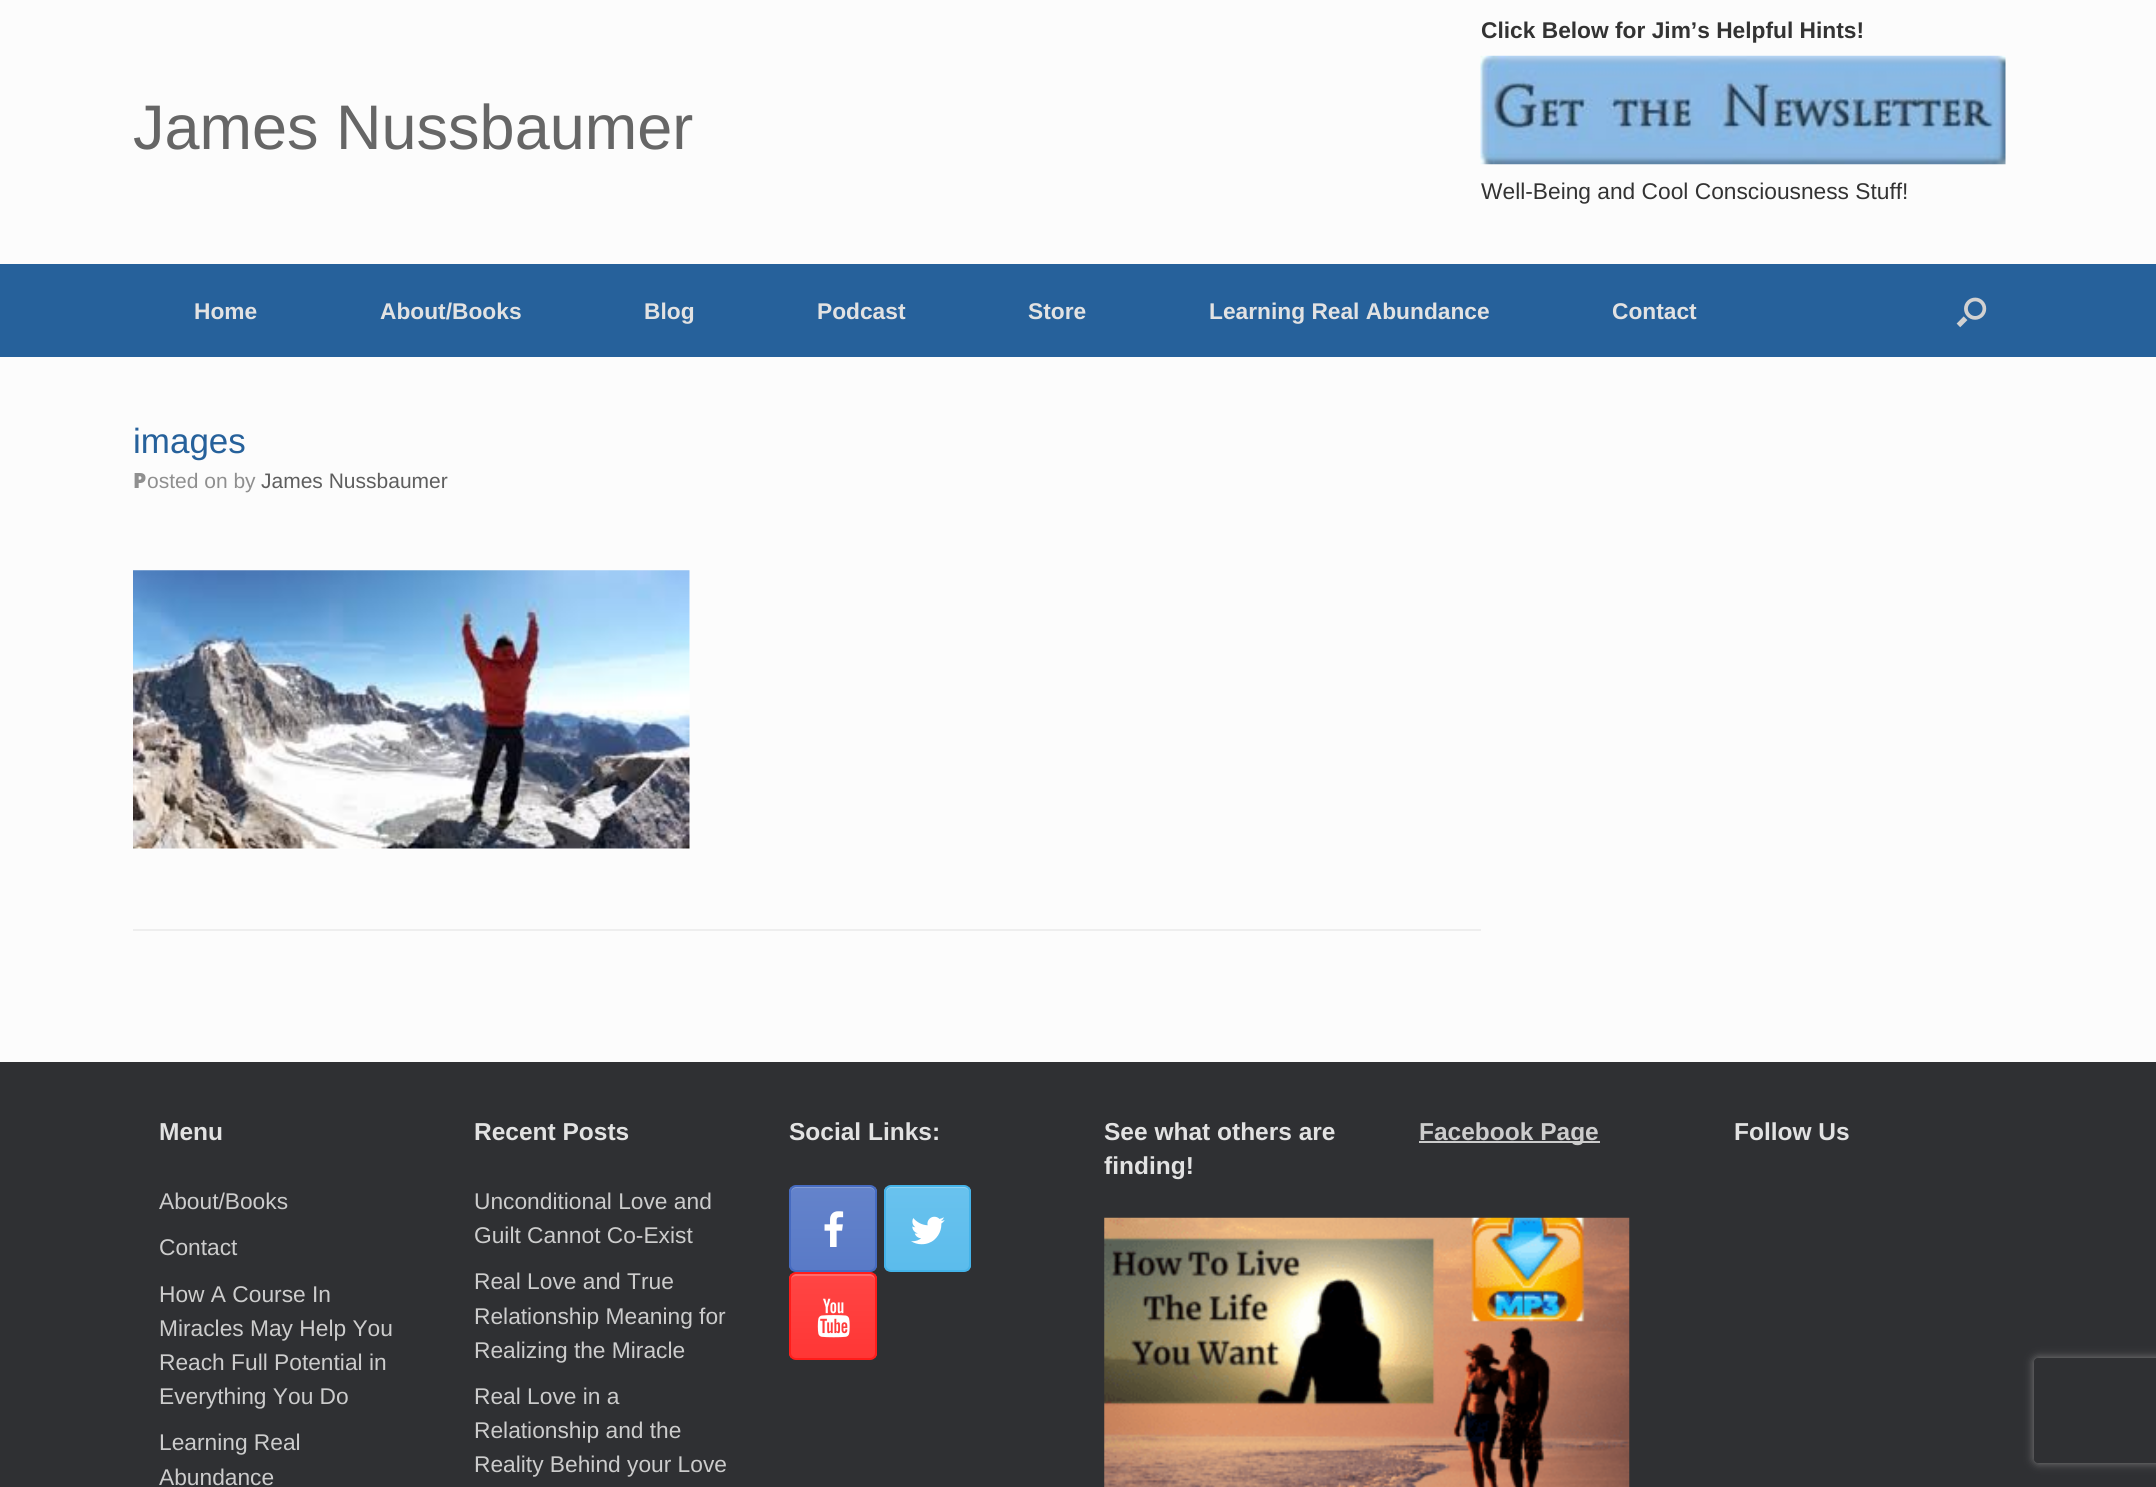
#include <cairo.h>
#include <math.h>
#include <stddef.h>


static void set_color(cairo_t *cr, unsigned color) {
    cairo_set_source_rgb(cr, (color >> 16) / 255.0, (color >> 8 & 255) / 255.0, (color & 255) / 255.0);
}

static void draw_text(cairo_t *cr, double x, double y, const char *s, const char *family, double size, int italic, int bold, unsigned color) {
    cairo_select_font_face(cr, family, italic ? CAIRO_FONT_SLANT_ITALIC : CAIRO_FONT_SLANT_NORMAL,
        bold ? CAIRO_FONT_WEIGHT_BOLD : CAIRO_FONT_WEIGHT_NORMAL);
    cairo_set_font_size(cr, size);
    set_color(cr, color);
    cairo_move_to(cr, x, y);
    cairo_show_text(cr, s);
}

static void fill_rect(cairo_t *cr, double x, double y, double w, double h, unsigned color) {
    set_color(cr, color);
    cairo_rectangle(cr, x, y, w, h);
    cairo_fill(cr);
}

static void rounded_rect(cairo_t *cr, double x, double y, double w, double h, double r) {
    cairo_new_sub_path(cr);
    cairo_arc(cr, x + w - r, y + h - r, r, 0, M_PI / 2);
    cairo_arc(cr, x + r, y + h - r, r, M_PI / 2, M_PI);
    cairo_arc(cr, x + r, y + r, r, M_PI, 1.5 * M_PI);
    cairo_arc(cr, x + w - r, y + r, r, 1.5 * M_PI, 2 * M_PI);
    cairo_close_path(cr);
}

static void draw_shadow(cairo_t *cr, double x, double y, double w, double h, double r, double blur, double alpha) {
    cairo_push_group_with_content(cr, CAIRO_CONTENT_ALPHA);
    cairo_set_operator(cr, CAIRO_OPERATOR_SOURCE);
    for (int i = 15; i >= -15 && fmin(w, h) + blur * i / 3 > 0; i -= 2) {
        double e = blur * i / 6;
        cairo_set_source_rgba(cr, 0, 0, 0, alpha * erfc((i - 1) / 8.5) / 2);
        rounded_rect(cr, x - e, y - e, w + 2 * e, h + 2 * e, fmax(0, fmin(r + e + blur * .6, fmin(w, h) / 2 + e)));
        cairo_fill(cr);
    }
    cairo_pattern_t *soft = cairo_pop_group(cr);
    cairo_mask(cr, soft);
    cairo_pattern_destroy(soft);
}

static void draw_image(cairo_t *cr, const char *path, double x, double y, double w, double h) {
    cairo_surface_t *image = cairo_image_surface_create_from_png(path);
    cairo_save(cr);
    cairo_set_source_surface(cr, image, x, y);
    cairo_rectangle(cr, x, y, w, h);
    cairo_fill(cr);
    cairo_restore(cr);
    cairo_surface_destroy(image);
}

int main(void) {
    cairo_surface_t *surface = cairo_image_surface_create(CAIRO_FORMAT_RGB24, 2156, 1487);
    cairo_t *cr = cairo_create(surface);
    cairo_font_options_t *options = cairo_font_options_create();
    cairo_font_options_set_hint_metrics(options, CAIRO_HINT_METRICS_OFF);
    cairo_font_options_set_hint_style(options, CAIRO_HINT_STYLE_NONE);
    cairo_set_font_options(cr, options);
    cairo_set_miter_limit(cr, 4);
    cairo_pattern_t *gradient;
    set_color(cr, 0x2F3033);
    cairo_paint(cr);
    fill_rect(cr, 0, 0, 2156, 264, 0xFCFCFC);
    draw_text(cr, 133, 149, "James Nussbaumer", "Liberation Sans", 63, 0, 0, 0x666666);
    draw_text(cr, 1481, 38, "Click Below for Jim’s Helpful Hints!", "Liberation Sans", 22.75, 0, 1, 0x333333);
    draw_image(cr, "assets/img1.png", 1480, 55, 526, 110);
    draw_text(cr, 1481, 199, "Well-Being and Cool Consciousness Stuff!", "Liberation Sans", 22.75, 0, 0, 0x333333);
    fill_rect(cr, 0, 264, 2156, 93, 0x26619B);
    draw_text(cr, 194, 319, "Home", "Liberation Sans", 22.75, 0, 1, 0xE2E2E2);
    draw_text(cr, 380, 319, "About/Books", "Liberation Sans", 22.75, 0, 1, 0xE2E2E2);
    draw_text(cr, 644, 319, "Blog", "Liberation Sans", 22.75, 0, 1, 0xE2E2E2);
    draw_text(cr, 817, 319, "Podcast", "Liberation Sans", 22.75, 0, 1, 0xE2E2E2);
    draw_text(cr, 1028, 319, "Store", "Liberation Sans", 22.75, 0, 1, 0xE2E2E2);
    draw_text(cr, 1209, 319, "Learning Real Abundance", "Liberation Sans", 22.75, 0, 1, 0xE2E2E2);
    draw_text(cr, 1612, 319, "Contact", "Liberation Sans", 22.75, 0, 1, 0xE2E2E2);
    draw_image(cr, "assets/img2.png", 1956, 297, 31, 31);
    fill_rect(cr, 0, 357, 2156, 705, 0xFCFCFC);
    fill_rect(cr, 133, 929, 1348, 2, 0xEEEEEE);
    draw_text(cr, 133, 453, "images", "Liberation Sans", 35, 0, 0, 0x26619B);
    draw_text(cr, 133, 488, "P", "Noto Sans Black", 21, 0, 0, 0x8F8F8F);
    draw_text(cr, 147, 488, "osted on by", "Liberation Sans", 21, 0, 0, 0x8F8F8F);
    draw_text(cr, 261, 488, "James Nussbaumer", "Liberation Sans", 21, 0, 0, 0x5E5E5E);
    draw_image(cr, "assets/img3.png", 133, 570, 557, 279);
    draw_text(cr, 159, 1140, "Menu", "Liberation Sans", 24.5, 0, 1, 0xE2E2E2);
    draw_text(cr, 159, 1209, "About/Books", "Liberation Sans", 22.75, 0, 0, 0xCCCCCC);
    draw_text(cr, 159, 1255, "Contact", "Liberation Sans", 22.75, 0, 0, 0xCCCCCC);
    draw_text(cr, 159, 1302, "How A Course In", "Liberation Sans", 22.75, 0, 0, 0xCCCCCC);
    draw_text(cr, 159, 1336, "Miracles May Help You", "Liberation Sans", 22.75, 0, 0, 0xCCCCCC);
    draw_text(cr, 159, 1370, "Reach Full Potential in", "Liberation Sans", 22.75, 0, 0, 0xCCCCCC);
    draw_text(cr, 159, 1404, "Everything You Do", "Liberation Sans", 22.75, 0, 0, 0xCCCCCC);
    draw_text(cr, 159, 1450, "Learning Real", "Liberation Sans", 22.75, 0, 0, 0xCCCCCC);
    draw_text(cr, 159, 1485, "Abundance", "Liberation Sans", 22.75, 0, 0, 0xCCCCCC);
    draw_text(cr, 474, 1140, "Recent Posts", "Liberation Sans", 24.5, 0, 1, 0xE2E2E2);
    draw_text(cr, 474, 1209, "Unconditional Love and", "Liberation Sans", 22.75, 0, 0, 0xCCCCCC);
    draw_text(cr, 474, 1243, "Guilt Cannot Co-Exist", "Liberation Sans", 22.75, 0, 0, 0xCCCCCC);
    draw_text(cr, 474, 1289, "Real Love and True", "Liberation Sans", 22.75, 0, 0, 0xCCCCCC);
    draw_text(cr, 474, 1324, "Relationship Meaning for", "Liberation Sans", 22.75, 0, 0, 0xCCCCCC);
    draw_text(cr, 474, 1358, "Realizing the Miracle", "Liberation Sans", 22.75, 0, 0, 0xCCCCCC);
    draw_text(cr, 474, 1404, "Real Love in a", "Liberation Sans", 22.75, 0, 0, 0xCCCCCC);
    draw_text(cr, 474, 1438, "Relationship and the", "Liberation Sans", 22.75, 0, 0, 0xCCCCCC);
    draw_text(cr, 474, 1472, "Reality Behind your Love", "Liberation Sans", 22.75, 0, 0, 0xCCCCCC);
    draw_text(cr, 789, 1140, "Social Links:", "Liberation Sans", 24.5, 0, 1, 0xE2E2E2);
    cairo_save(cr);
    rounded_rect(cr, 789, 1185, 88, 87, 7);
    cairo_clip(cr);
    gradient = cairo_pattern_create_linear(791, 1271, 791, 1187);
    cairo_pattern_add_color_stop_rgba(gradient, 0, 0.349, 0.478, 0.78, 1);
    cairo_pattern_add_color_stop_rgba(gradient, 1, 0.392, 0.514, 0.796, 1);
    cairo_set_source(cr, gradient);
    cairo_pattern_destroy(gradient);
    cairo_rectangle(cr, 789, 1187, 88, 84);
    cairo_fill(cr);
    cairo_restore(cr);
    set_color(cr, 0x839CD5);
    cairo_new_path(cr);
    cairo_move_to(cr, 796, 1188);
    cairo_line_to(cr, 870, 1188);
    cairo_curve_to(cr, 873, 1188, 875, 1191, 875, 1194);
    cairo_curve_to(cr, 875, 1184, 866, 1187, 858, 1187);
    cairo_line_to(cr, 808, 1187);
    cairo_curve_to(cr, 800, 1187, 791, 1184, 791, 1194);
    cairo_curve_to(cr, 791, 1191, 793, 1188, 796, 1188);
    cairo_close_path(cr);
    cairo_fill(cr);
    rounded_rect(cr, 790, 1186, 86, 85, 6);
    set_color(cr, 0x466BC1);
    cairo_stroke(cr);
    draw_image(cr, "assets/img4.png", 824, 1211, 20, 36);
    cairo_save(cr);
    rounded_rect(cr, 884, 1185, 87, 87, 7);
    cairo_clip(cr);
    gradient = cairo_pattern_create_linear(886, 1271, 886, 1187);
    cairo_pattern_add_color_stop_rgba(gradient, 0, 0.357, 0.737, 0.925, 1);
    cairo_pattern_add_color_stop_rgba(gradient, 1, 0.412, 0.761, 0.933, 1);
    cairo_set_source(cr, gradient);
    cairo_pattern_destroy(gradient);
    cairo_rectangle(cr, 884, 1187, 87, 84);
    cairo_fill(cr);
    cairo_restore(cr);
    set_color(cr, 0x8FD1F2);
    cairo_new_path(cr);
    cairo_move_to(cr, 891, 1188);
    cairo_line_to(cr, 964, 1188);
    cairo_curve_to(cr, 967, 1188, 970, 1191, 970, 1194);
    cairo_curve_to(cr, 970, 1184, 961, 1187, 953, 1187);
    cairo_line_to(cr, 903, 1187);
    cairo_curve_to(cr, 895, 1187, 886, 1184, 886, 1194);
    cairo_curve_to(cr, 886, 1191, 888, 1188, 891, 1188);
    cairo_close_path(cr);
    cairo_fill(cr);
    rounded_rect(cr, 885, 1186, 85, 85, 6);
    set_color(cr, 0x44B3E9);
    cairo_stroke(cr);
    draw_image(cr, "assets/img5.png", 911, 1216, 34, 29);
    cairo_save(cr);
    rounded_rect(cr, 789, 1272, 88, 88, 7);
    cairo_clip(cr);
    gradient = cairo_pattern_create_linear(791, 1358, 791, 1274);
    cairo_pattern_add_color_stop_rgba(gradient, 0, 1, 0.212, 0.208, 1);
    cairo_pattern_add_color_stop_rgba(gradient, 1, 1, 0.271, 0.267, 1);
    cairo_set_source(cr, gradient);
    cairo_pattern_destroy(gradient);
    cairo_rectangle(cr, 789, 1274, 88, 84);
    cairo_fill(cr);
    cairo_restore(cr);
    set_color(cr, 0xFF6A69);
    cairo_new_path(cr);
    cairo_move_to(cr, 796, 1276);
    cairo_line_to(cr, 870, 1276);
    cairo_curve_to(cr, 873, 1276, 875, 1278, 875, 1281);
    cairo_curve_to(cr, 875, 1271, 866, 1274, 858, 1274);
    cairo_line_to(cr, 808, 1274);
    cairo_curve_to(cr, 800, 1274, 791, 1271, 791, 1281);
    cairo_curve_to(cr, 791, 1278, 793, 1276, 796, 1276);
    cairo_close_path(cr);
    cairo_fill(cr);
    rounded_rect(cr, 790, 1273, 86, 86, 6);
    set_color(cr, 0xFF1D1B);
    cairo_stroke(cr);
    draw_image(cr, "assets/img6.png", 817, 1298, 33, 40);
    draw_text(cr, 1104, 1140, "See what others are", "Liberation Sans", 24.5, 0, 1, 0xE2E2E2);
    draw_text(cr, 1104, 1174, "finding!", "Liberation Sans", 24.5, 0, 1, 0xE2E2E2);
    draw_image(cr, "assets/img7.png", 1104, 1217, 526, 270);
    fill_rect(cr, 1419, 1141, 181, 2, 0xCCCCCC);
    draw_text(cr, 1419, 1140, "Facebook Page", "Liberation Sans", 24.5, 0, 1, 0xCCCCCC);
    draw_text(cr, 1734, 1140, "Follow Us", "Liberation Sans", 24.5, 0, 1, 0xE2E2E2);
    cairo_save(cr);
    cairo_set_fill_rule(cr, CAIRO_FILL_RULE_EVEN_ODD);
    cairo_new_path(cr);
    cairo_move_to(cr, 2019, 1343);
    cairo_line_to(cr, 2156, 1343);
    cairo_line_to(cr, 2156, 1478);
    cairo_line_to(cr, 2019, 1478);
    cairo_close_path(cr);
    cairo_move_to(cr, 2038, 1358);
    cairo_line_to(cr, 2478, 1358);
    cairo_curve_to(cr, 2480, 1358, 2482, 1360, 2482, 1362);
    cairo_line_to(cr, 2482, 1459);
    cairo_curve_to(cr, 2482, 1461, 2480, 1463, 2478, 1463);
    cairo_line_to(cr, 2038, 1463);
    cairo_curve_to(cr, 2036, 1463, 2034, 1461, 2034, 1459);
    cairo_line_to(cr, 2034, 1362);
    cairo_curve_to(cr, 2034, 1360, 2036, 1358, 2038, 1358);
    cairo_close_path(cr);
    cairo_clip(cr);
    set_color(cr, 0x808080);
    draw_shadow(cr, 2034, 1358, 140, 105, 4, 4.5, 1);
    cairo_restore(cr);
    cairo_surface_write_to_png(surface, "output.png");
    cairo_font_options_destroy(options);
    cairo_destroy(cr);
    cairo_surface_destroy(surface);
    return 0;
}
